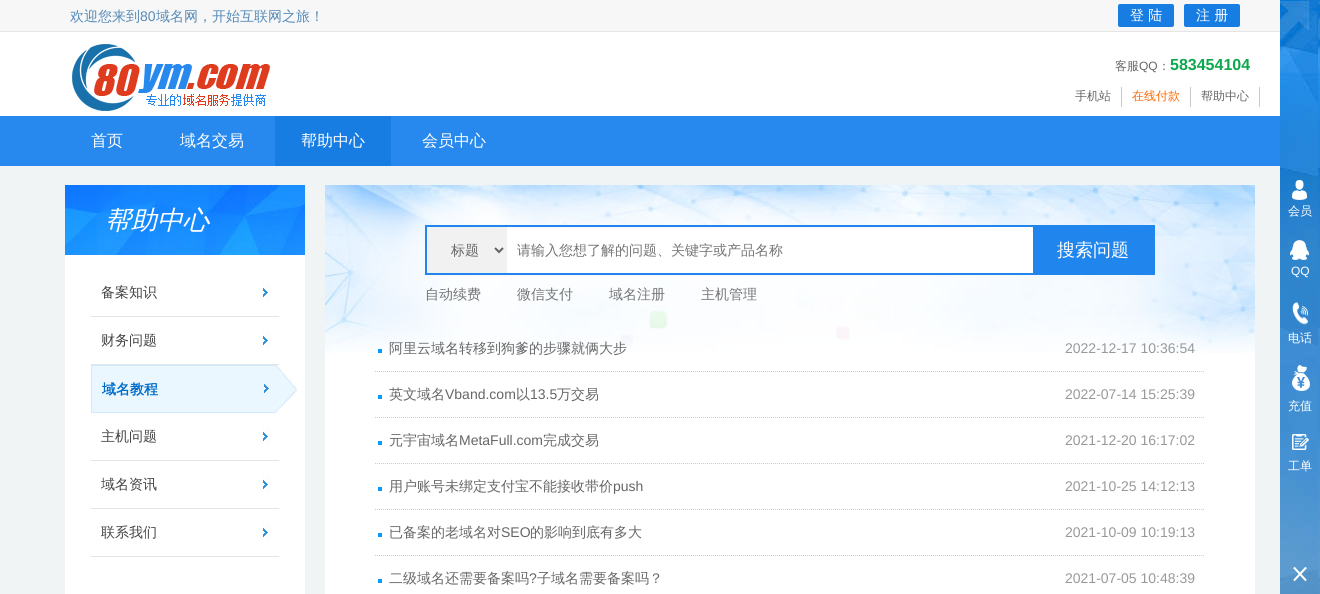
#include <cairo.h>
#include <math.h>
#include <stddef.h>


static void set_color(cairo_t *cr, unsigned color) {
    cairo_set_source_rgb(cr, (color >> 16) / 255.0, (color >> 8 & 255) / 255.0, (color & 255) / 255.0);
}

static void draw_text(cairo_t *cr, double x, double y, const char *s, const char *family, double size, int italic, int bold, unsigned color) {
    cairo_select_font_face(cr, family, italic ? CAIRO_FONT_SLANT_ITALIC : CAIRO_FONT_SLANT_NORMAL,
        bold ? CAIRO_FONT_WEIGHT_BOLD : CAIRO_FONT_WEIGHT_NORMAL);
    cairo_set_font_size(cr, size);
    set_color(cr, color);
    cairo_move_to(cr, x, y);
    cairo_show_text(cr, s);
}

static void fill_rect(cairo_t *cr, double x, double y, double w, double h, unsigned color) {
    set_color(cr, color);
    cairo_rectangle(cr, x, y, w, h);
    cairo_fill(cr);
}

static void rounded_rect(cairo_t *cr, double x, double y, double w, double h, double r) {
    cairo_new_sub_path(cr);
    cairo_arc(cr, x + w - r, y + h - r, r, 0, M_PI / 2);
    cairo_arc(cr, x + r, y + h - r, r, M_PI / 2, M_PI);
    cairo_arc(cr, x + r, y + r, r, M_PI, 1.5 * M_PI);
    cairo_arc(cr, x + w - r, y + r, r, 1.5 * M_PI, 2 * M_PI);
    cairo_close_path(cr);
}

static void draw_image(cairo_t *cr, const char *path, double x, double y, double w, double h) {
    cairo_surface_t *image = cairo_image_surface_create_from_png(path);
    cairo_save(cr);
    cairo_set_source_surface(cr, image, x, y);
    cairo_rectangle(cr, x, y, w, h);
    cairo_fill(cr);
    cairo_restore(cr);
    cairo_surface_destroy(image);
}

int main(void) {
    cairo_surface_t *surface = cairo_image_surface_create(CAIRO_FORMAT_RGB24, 1320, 594);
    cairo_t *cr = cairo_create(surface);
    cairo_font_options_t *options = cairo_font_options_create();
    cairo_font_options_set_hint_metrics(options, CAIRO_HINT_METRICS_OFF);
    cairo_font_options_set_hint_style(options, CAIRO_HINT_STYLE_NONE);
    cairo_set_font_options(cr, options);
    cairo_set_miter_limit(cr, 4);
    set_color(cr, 0xFFFFFF);
    cairo_paint(cr);
    fill_rect(cr, 0, 31, 1280, 1, 0xE5E5E5);
    fill_rect(cr, 0, 0, 1280, 31, 0xF7F7F7);
    draw_text(cr, 70, 21, "欢迎您来到", "WenQuanYi Zen Hei Medium", 14, 0, 0, 0x568BB9);
    draw_text(cr, 140, 21, "80", "Liberation Sans", 14, 0, 0, 0x568BB9);
    draw_text(cr, 156, 21, "域名网，开始互联网之旅！", "WenQuanYi Zen Hei Medium", 14, 0, 0, 0x568BB9);
    set_color(cr, 0x187DE3);
    rounded_rect(cr, 1118, 4, 56, 23, 2);
    cairo_fill(cr);
    draw_text(cr, 1130, 20, "登 陆", "WenQuanYi Zen Hei Medium", 14, 0, 0, 0xFFFFFF);
    set_color(cr, 0x187DE3);
    rounded_rect(cr, 1184, 4, 56, 23, 2);
    cairo_fill(cr);
    draw_text(cr, 1196, 20, "注 册", "WenQuanYi Zen Hei Medium", 14, 0, 0, 0xFFFFFF);
    draw_image(cr, "assets/img1.png", 72, 44, 198, 67);
    draw_text(cr, 1115, 70, "客服", "WenQuanYi Zen Hei Medium", 12, 0, 0, 0x666666);
    draw_text(cr, 1139, 70, "QQ", "Liberation Sans", 12, 0, 0, 0x666666);
    draw_text(cr, 1158, 70, "：", "WenQuanYi Zen Hei Medium", 12, 0, 0, 0x666666);
    draw_text(cr, 1170, 70, "583454104", "Liberation Sans", 16, 0, 1, 0x0CA84C);
    fill_rect(cr, 1121, 87, 1, 20, 0xC9C9C9);
    draw_text(cr, 1075, 100, "手机站", "WenQuanYi Zen Hei Medium", 12, 0, 0, 0x666666);
    fill_rect(cr, 1190, 87, 1, 20, 0xC9C9C9);
    draw_text(cr, 1132, 100, "在线付款", "WenQuanYi Zen Hei Medium", 12, 0, 0, 0xFF6600);
    fill_rect(cr, 1259, 87, 1, 20, 0xC9C9C9);
    draw_text(cr, 1201, 100, "帮助中心", "WenQuanYi Zen Hei Medium", 12, 0, 0, 0x666666);
    fill_rect(cr, 0, 116, 1280, 50, 0x2789ED);
    draw_text(cr, 91, 146, "首页", "WenQuanYi Zen Hei Medium", 16, 0, 0, 0xFFFFFF);
    draw_text(cr, 180, 146, "域名交易", "WenQuanYi Zen Hei Medium", 16, 0, 0, 0xFFFFFF);
    fill_rect(cr, 275, 116, 116, 50, 0x187DE3);
    draw_text(cr, 301, 146, "帮助中心", "WenQuanYi Zen Hei Medium", 16, 0, 0, 0xFFFFFF);
    draw_text(cr, 422, 146, "会员中心", "WenQuanYi Zen Hei Medium", 16, 0, 0, 0xFFFFFF);
    fill_rect(cr, 0, 166, 1280, 428, 0xF1F4F4);
    draw_image(cr, "assets/img2.png", 65, 185, 240, 70);
    draw_text(cr, 105, 229, "帮助中心", "WenQuanYi Zen Hei Medium", 26, 1, 0, 0xFFFFFF);
    fill_rect(cr, 65, 255, 240, 339, 0xFFFFFF);
    draw_image(cr, "assets/img3.png", 263, 283, 8, 16);
    fill_rect(cr, 91, 316, 188, 1, 0xE5E5E5);
    draw_text(cr, 101, 297, "备案知识", "WenQuanYi Zen Hei Medium", 14, 0, 0, 0x434343);
    draw_image(cr, "assets/img3.png", 263, 331, 8, 16);
    fill_rect(cr, 91, 364, 188, 1, 0xE5E5E5);
    draw_text(cr, 101, 345, "财务问题", "WenQuanYi Zen Hei Medium", 14, 0, 0, 0x434343);
    fill_rect(cr, 92, 366, 184, 46, 0xEBF7FE);
    draw_image(cr, "assets/img4.png", 264, 378, 8, 16);
    cairo_rectangle(cr, 91.5, 365.5, 187, 47);
    set_color(cr, 0xD0E9FF);
    cairo_set_line_width(cr, 1);
    cairo_stroke(cr);
    draw_text(cr, 102, 394, "域名教程", "WenQuanYi Zen Hei", 14, 0, 1, 0x006DCA);
    draw_image(cr, "assets/img5.png", 276, 365, 22, 50);
    draw_image(cr, "assets/img3.png", 263, 427, 8, 16);
    fill_rect(cr, 91, 460, 188, 1, 0xE5E5E5);
    draw_text(cr, 101, 441, "主机问题", "WenQuanYi Zen Hei Medium", 14, 0, 0, 0x434343);
    draw_image(cr, "assets/img3.png", 263, 475, 8, 16);
    fill_rect(cr, 91, 508, 188, 1, 0xE5E5E5);
    draw_text(cr, 101, 489, "域名资讯", "WenQuanYi Zen Hei Medium", 14, 0, 0, 0x434343);
    draw_image(cr, "assets/img3.png", 263, 523, 8, 16);
    fill_rect(cr, 91, 556, 188, 1, 0xE5E5E5);
    draw_text(cr, 101, 537, "联系我们", "WenQuanYi Zen Hei Medium", 14, 0, 0, 0x434343);
    fill_rect(cr, 325, 353, 930, 241, 0xFFFFFF);
    draw_image(cr, "assets/img6.png", 325, 185, 930, 168);
    fill_rect(cr, 507, 227, 526, 46, 0xFFFFFF);
    cairo_rectangle(cr, 426, 226, 728, 48);
    set_color(cr, 0x2086EE);
    cairo_set_line_width(cr, 2);
    cairo_stroke(cr);
    fill_rect(cr, 427, 227, 80, 46, 0xF1F1F1);
    cairo_new_path(cr);
    cairo_move_to(cr, 495, 248);
    cairo_line_to(cr, 499, 252);
    cairo_line_to(cr, 503, 248);
    set_color(cr, 0x636363);
    cairo_stroke(cr);
    draw_text(cr, 451, 255, "标题", "WenQuanYi Zen Hei Medium", 14, 0, 0, 0x666666);
    draw_text(cr, 517, 255, "请输入您想了解的问题、关键字或产品名称", "WenQuanYi Zen Hei Medium", 14, 0, 0, 0x747474);
    fill_rect(cr, 1033, 227, 120, 46, 0x2086EE);
    draw_text(cr, 1057, 256, "搜索问题", "WenQuanYi Zen Hei Medium", 18, 0, 0, 0xFFFFFF);
    draw_text(cr, 425, 299, "自动续费", "WenQuanYi Zen Hei Medium", 14, 0, 0, 0x747474);
    draw_text(cr, 517, 299, "微信支付", "WenQuanYi Zen Hei Medium", 14, 0, 0, 0x747474);
    draw_text(cr, 609, 299, "域名注册", "WenQuanYi Zen Hei Medium", 14, 0, 0, 0x747474);
    draw_text(cr, 701, 299, "主机管理", "WenQuanYi Zen Hei Medium", 14, 0, 0, 0x747474);
    fill_rect(cr, 378, 349, 4, 4, 0x009CFF);
    cairo_new_path(cr);
    cairo_move_to(cr, 375, 371.5);
    cairo_line_to(cr, 1205, 371.5);
    set_color(cr, 0xCCCCCC);
    cairo_set_line_width(cr, 1);
    cairo_set_dash(cr, (double[]){1, 1}, 2, 0);
    cairo_stroke(cr);
    draw_text(cr, 389, 353, "阿里云域名转移到狗爹的步骤就俩大步", "WenQuanYi Zen Hei Medium", 14, 0, 0, 0x666666);
    draw_text(cr, 1065, 353, "2022-12-17 10:36:54", "Liberation Sans", 14, 0, 0, 0x999999);
    fill_rect(cr, 378, 395, 4, 4, 0x009CFF);
    cairo_new_path(cr);
    cairo_move_to(cr, 375, 417.5);
    cairo_line_to(cr, 1205, 417.5);
    set_color(cr, 0xCCCCCC);
    cairo_stroke(cr);
    draw_text(cr, 389, 399, "英文域名", "WenQuanYi Zen Hei Medium", 14, 0, 0, 0x666666);
    draw_text(cr, 445, 399, "Vband.com", "Liberation Sans", 14, 0, 0, 0x666666);
    draw_text(cr, 516, 399, "以", "WenQuanYi Zen Hei Medium", 14, 0, 0, 0x666666);
    draw_text(cr, 530, 399, "13.5", "Liberation Sans", 14, 0, 0, 0x666666);
    draw_text(cr, 557, 399, "万交易", "WenQuanYi Zen Hei Medium", 14, 0, 0, 0x666666);
    draw_text(cr, 1065, 399, "2022-07-14 15:25:39", "Liberation Sans", 14, 0, 0, 0x999999);
    fill_rect(cr, 378, 441, 4, 4, 0x009CFF);
    cairo_new_path(cr);
    cairo_move_to(cr, 375, 463.5);
    cairo_line_to(cr, 1205, 463.5);
    set_color(cr, 0xCCCCCC);
    cairo_stroke(cr);
    draw_text(cr, 389, 445, "元宇宙域名", "WenQuanYi Zen Hei Medium", 14, 0, 0, 0x666666);
    draw_text(cr, 459, 445, "MetaFull.com", "Liberation Sans", 14, 0, 0, 0x666666);
    draw_text(cr, 543, 445, "完成交易", "WenQuanYi Zen Hei Medium", 14, 0, 0, 0x666666);
    draw_text(cr, 1065, 445, "2021-12-20 16:17:02", "Liberation Sans", 14, 0, 0, 0x999999);
    fill_rect(cr, 378, 487, 4, 4, 0x009CFF);
    cairo_new_path(cr);
    cairo_move_to(cr, 375, 509.5);
    cairo_line_to(cr, 1205, 509.5);
    set_color(cr, 0xCCCCCC);
    cairo_stroke(cr);
    draw_text(cr, 389, 491, "用户账号未绑定支付宝不能接收带价", "WenQuanYi Zen Hei Medium", 14, 0, 0, 0x666666);
    draw_text(cr, 613, 491, "push", "Liberation Sans", 14, 0, 0, 0x666666);
    draw_text(cr, 1065, 491, "2021-10-25 14:12:13", "Liberation Sans", 14, 0, 0, 0x999999);
    fill_rect(cr, 378, 533, 4, 4, 0x009CFF);
    cairo_new_path(cr);
    cairo_move_to(cr, 375, 555.5);
    cairo_line_to(cr, 1205, 555.5);
    set_color(cr, 0xCCCCCC);
    cairo_stroke(cr);
    draw_text(cr, 389, 537, "已备案的老域名对", "WenQuanYi Zen Hei Medium", 14, 0, 0, 0x666666);
    draw_text(cr, 501, 537, "SEO", "Liberation Sans", 14, 0, 0, 0x666666);
    draw_text(cr, 530, 537, "的影响到底有多大", "WenQuanYi Zen Hei Medium", 14, 0, 0, 0x666666);
    draw_text(cr, 1065, 537, "2021-10-09 10:19:13", "Liberation Sans", 14, 0, 0, 0x999999);
    fill_rect(cr, 378, 579, 4, 4, 0x009CFF);
    draw_text(cr, 389, 583, "二级域名还需要备案吗", "WenQuanYi Zen Hei Medium", 14, 0, 0, 0x666666);
    draw_text(cr, 529, 583, "?", "Liberation Sans", 14, 0, 0, 0x666666);
    draw_text(cr, 537, 583, "子域名需要备案吗？", "WenQuanYi Zen Hei Medium", 14, 0, 0, 0x666666);
    draw_text(cr, 1065, 583, "2021-07-05 10:48:39", "Liberation Sans", 14, 0, 0, 0x999999);
    draw_image(cr, "assets/img7.png", 1280, 0, 40, 594);
    draw_image(cr, "assets/img8.png", 1292, 180, 15, 20);
    draw_text(cr, 1288, 215, "会员", "WenQuanYi Zen Hei Medium", 12, 0, 0, 0xFFFFFF);
    draw_image(cr, "assets/img9.png", 1290, 240, 19, 20);
    draw_text(cr, 1291, 275, "QQ", "Liberation Sans", 12, 0, 0, 0xFFFFFF);
    draw_image(cr, "assets/img10.png", 1292, 302, 16, 23);
    draw_text(cr, 1288, 342, "电话", "WenQuanYi Zen Hei Medium", 12, 0, 0, 0xFFFFFF);
    draw_image(cr, "assets/img11.png", 1292, 365, 18, 26);
    draw_text(cr, 1288, 410, "充值", "WenQuanYi Zen Hei Medium", 12, 0, 0, 0xFFFFFF);
    draw_image(cr, "assets/img12.png", 1292, 434, 17, 16);
    draw_text(cr, 1288, 470, "工单", "WenQuanYi Zen Hei Medium", 12, 0, 0, 0xFFFFFF);
    draw_image(cr, "assets/img13.png", 1293, 567, 14, 15);
    cairo_surface_write_to_png(surface, "output.png");
    cairo_font_options_destroy(options);
    cairo_destroy(cr);
    cairo_surface_destroy(surface);
    return 0;
}
